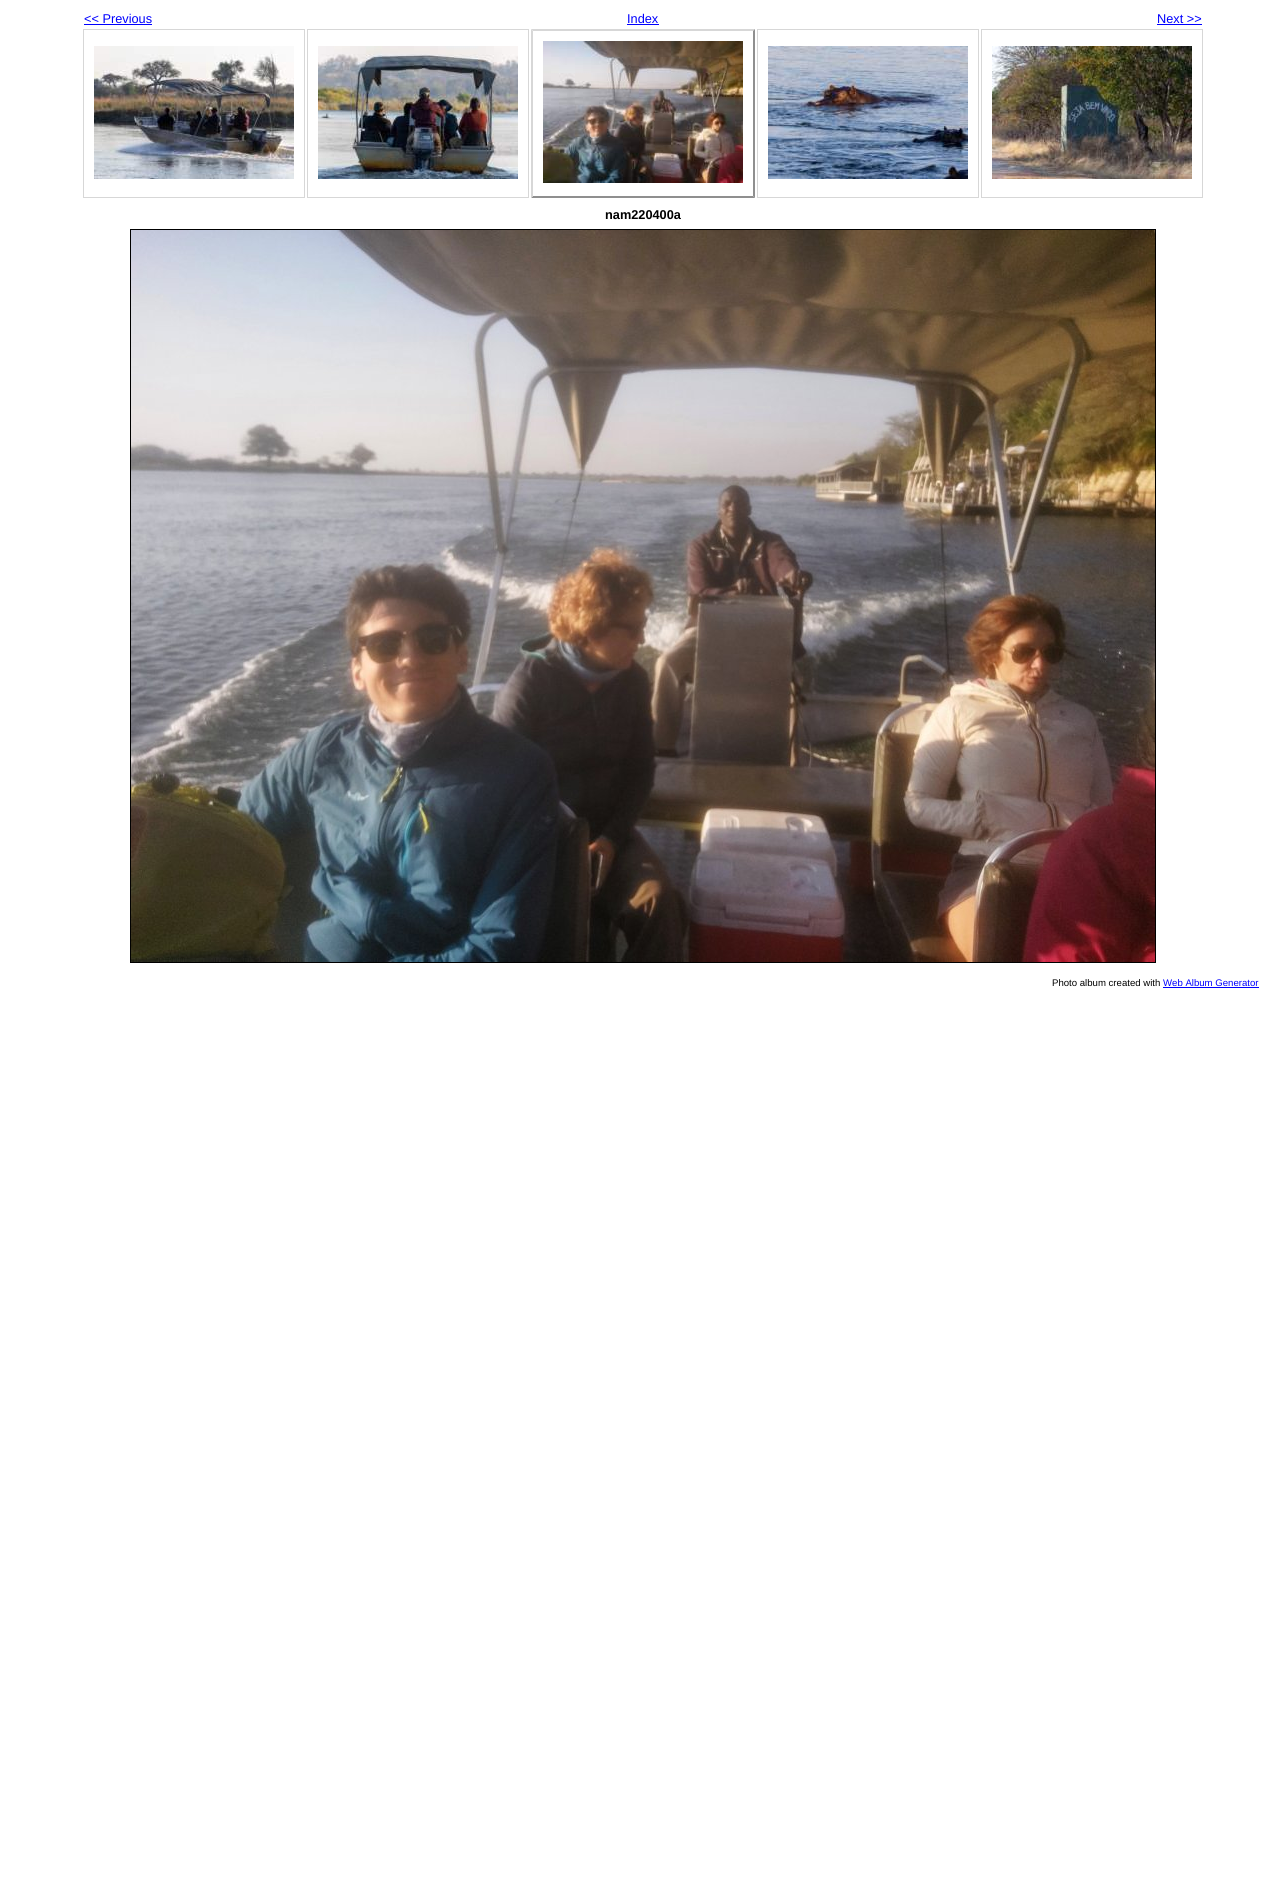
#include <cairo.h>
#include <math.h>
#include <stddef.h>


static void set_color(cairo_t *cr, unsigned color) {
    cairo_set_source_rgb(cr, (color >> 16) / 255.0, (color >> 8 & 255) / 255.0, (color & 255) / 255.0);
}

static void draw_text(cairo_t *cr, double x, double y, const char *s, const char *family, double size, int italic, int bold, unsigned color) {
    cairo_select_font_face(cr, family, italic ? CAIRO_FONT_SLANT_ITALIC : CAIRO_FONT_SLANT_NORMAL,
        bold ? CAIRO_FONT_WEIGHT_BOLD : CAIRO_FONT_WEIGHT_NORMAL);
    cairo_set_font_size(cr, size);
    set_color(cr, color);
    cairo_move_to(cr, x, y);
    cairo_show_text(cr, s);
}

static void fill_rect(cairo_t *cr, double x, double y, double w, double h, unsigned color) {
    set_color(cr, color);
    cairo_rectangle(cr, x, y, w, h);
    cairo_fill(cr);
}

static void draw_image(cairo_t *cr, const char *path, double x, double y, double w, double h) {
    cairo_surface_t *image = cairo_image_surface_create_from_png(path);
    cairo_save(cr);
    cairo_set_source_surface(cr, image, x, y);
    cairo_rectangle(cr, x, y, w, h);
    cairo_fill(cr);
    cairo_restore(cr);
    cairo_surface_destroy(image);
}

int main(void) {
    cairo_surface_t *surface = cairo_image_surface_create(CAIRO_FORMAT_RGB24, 1286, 1887);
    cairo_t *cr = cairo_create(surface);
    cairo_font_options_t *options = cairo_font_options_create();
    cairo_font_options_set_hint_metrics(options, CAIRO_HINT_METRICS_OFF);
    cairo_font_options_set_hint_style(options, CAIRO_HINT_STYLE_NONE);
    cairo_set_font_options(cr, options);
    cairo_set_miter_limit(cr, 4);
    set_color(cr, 0xFFFFFF);
    cairo_paint(cr);
    draw_text(cr, 84, 23, "<< Previous", "Liberation Sans", 12.75, 0, 0, 0x0000FF);
    fill_rect(cr, 84, 24, 68, 1, 0x0000FF);
    draw_text(cr, 627, 23, "Index", "Liberation Sans", 12.75, 0, 0, 0x0000FF);
    fill_rect(cr, 627, 24, 32, 1, 0x0000FF);
    draw_text(cr, 1157, 23, "Next >>", "Liberation Sans", 12.75, 0, 0, 0x0000FF);
    fill_rect(cr, 1157, 24, 45, 1, 0x0000FF);
    cairo_rectangle(cr, 83.5, 29.5, 221, 168);
    set_color(cr, 0xD7D7D7);
    cairo_set_line_width(cr, 1);
    cairo_stroke(cr);
    draw_image(cr, "assets/img1.png", 94, 46, 200, 133);
    cairo_rectangle(cr, 307.5, 29.5, 221, 168);
    cairo_stroke(cr);
    draw_image(cr, "assets/img2.png", 318, 46, 200, 133);
    cairo_new_path(cr);
    cairo_move_to(cr, 531, 29);
    cairo_line_to(cr, 755, 29);
    cairo_line_to(cr, 753, 31);
    cairo_line_to(cr, 533, 31);
    cairo_close_path(cr);
    cairo_fill(cr);
    set_color(cr, 0x8F8F8F);
    cairo_new_path(cr);
    cairo_move_to(cr, 755, 29);
    cairo_line_to(cr, 755, 198);
    cairo_line_to(cr, 753, 196);
    cairo_line_to(cr, 753, 31);
    cairo_close_path(cr);
    cairo_fill(cr);
    cairo_new_path(cr);
    cairo_move_to(cr, 755, 198);
    cairo_line_to(cr, 531, 198);
    cairo_line_to(cr, 533, 196);
    cairo_line_to(cr, 753, 196);
    cairo_close_path(cr);
    cairo_fill(cr);
    set_color(cr, 0xD7D7D7);
    cairo_new_path(cr);
    cairo_move_to(cr, 531, 198);
    cairo_line_to(cr, 531, 29);
    cairo_line_to(cr, 533, 31);
    cairo_line_to(cr, 533, 196);
    cairo_close_path(cr);
    cairo_fill(cr);
    draw_image(cr, "assets/img3.png", 543, 41, 200, 142);
    cairo_rectangle(cr, 757.5, 29.5, 221, 168);
    cairo_stroke(cr);
    draw_image(cr, "assets/img4.png", 768, 46, 200, 133);
    cairo_rectangle(cr, 981.5, 29.5, 221, 168);
    cairo_stroke(cr);
    draw_image(cr, "assets/img5.png", 992, 46, 200, 133);
    draw_text(cr, 605, 219, "nam220400a", "Liberation Sans", 12.75, 0, 1, 0x000000);
    cairo_rectangle(cr, 130.5, 229.5, 1025, 733);
    cairo_stroke(cr);
    draw_image(cr, "assets/img6.png", 131, 230, 1024, 732);
    draw_text(cr, 1052, 986, "Photo album created with", "Liberation Sans", 9.6, 0, 0, 0x000000);
    draw_text(cr, 1163, 986, "Web Album Generator", "Liberation Sans", 9.6, 0, 0, 0x0000FF);
    fill_rect(cr, 1163, 987, 96, 1, 0x0000FF);
    cairo_surface_write_to_png(surface, "output.png");
    cairo_font_options_destroy(options);
    cairo_destroy(cr);
    cairo_surface_destroy(surface);
    return 0;
}
